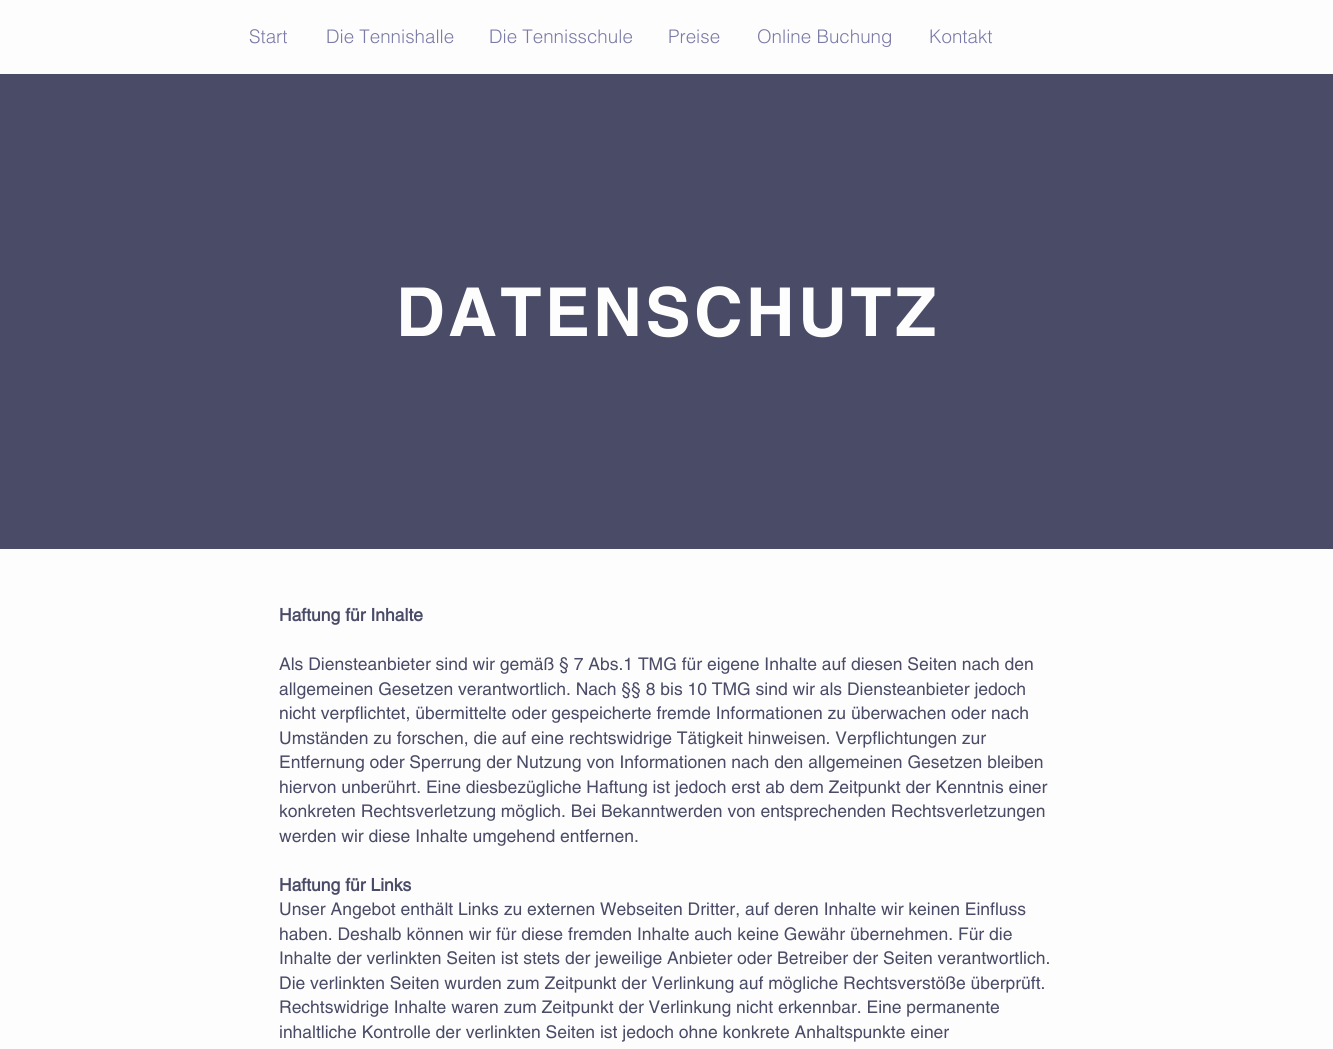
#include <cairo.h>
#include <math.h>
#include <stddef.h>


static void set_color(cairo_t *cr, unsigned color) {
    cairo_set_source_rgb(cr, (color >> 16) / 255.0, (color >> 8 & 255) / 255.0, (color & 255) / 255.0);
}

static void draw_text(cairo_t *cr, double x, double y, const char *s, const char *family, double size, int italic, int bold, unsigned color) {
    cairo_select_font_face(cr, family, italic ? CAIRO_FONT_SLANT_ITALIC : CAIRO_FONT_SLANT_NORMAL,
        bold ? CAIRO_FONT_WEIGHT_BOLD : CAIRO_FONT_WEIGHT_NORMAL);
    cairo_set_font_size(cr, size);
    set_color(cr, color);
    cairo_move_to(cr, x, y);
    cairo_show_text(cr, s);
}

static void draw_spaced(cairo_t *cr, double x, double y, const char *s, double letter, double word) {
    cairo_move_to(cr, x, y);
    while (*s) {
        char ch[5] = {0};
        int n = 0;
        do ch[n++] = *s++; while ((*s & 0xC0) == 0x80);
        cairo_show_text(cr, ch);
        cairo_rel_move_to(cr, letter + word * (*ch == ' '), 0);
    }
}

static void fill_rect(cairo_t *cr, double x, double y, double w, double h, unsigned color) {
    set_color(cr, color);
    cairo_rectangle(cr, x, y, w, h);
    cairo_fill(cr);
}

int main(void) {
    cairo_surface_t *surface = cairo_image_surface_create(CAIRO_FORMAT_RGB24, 1333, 1049);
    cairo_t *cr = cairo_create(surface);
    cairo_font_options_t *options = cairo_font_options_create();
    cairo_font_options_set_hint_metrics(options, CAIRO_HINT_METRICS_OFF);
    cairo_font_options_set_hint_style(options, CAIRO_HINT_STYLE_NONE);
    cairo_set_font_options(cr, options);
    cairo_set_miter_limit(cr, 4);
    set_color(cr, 0xFEFDFE);
    cairo_paint(cr);
    draw_text(cr, 249, 43, "Start", "helvetica Light", 18.75, 0, 0, 0x7A7BA6);
    draw_text(cr, 326, 43, "Die Tennishalle", "helvetica Light", 18.75, 0, 0, 0x7A7BA6);
    draw_text(cr, 489, 43, "Die Tennisschule", "helvetica Light", 18.75, 0, 0, 0x7A7BA6);
    draw_text(cr, 668, 43, "Preise", "helvetica Light", 18.75, 0, 0, 0x7A7BA6);
    draw_text(cr, 757, 43, "Online Buchung", "helvetica Light", 18.75, 0, 0, 0x7A7BA6);
    draw_text(cr, 929, 43, "Kontakt", "helvetica Light", 18.75, 0, 0, 0x7A7BA6);
    fill_rect(cr, 0, 74, 1333, 475, 0x4A4C67);
    cairo_select_font_face(cr, "helvetica", CAIRO_FONT_SLANT_NORMAL, CAIRO_FONT_WEIGHT_BOLD);
    cairo_set_font_size(cr, 67.5);
    set_color(cr, 0xFEFDFE);
    draw_spaced(cr, 396, 336, "DATENSCHUTZ", 3.4, 0);
    draw_text(cr, 279, 621, "Haftung für Inhalte", "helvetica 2", 17.5, 0, 1, 0x4A4C67);
    draw_text(cr, 279, 670, "Als Diensteanbieter sind wir gemäß § 7 Abs.1 TMG für eigene Inhalte auf diesen Seiten nach den", "helvetica", 17.5, 0, 0, 0x4A4C67);
    draw_text(cr, 279, 695, "allgemeinen Gesetzen verantwortlich. Nach §§ 8 bis 10 TMG sind wir als Diensteanbieter jedoch", "helvetica", 17.5, 0, 0, 0x4A4C67);
    draw_text(cr, 279, 719, "nicht verpflichtet, übermittelte oder gespeicherte fremde Informationen zu überwachen oder nach", "helvetica", 17.5, 0, 0, 0x4A4C67);
    draw_text(cr, 279, 744, "Umständen zu forschen, die auf eine rechtswidrige Tätigkeit hinweisen. Verpflichtungen zur", "helvetica", 17.5, 0, 0, 0x4A4C67);
    draw_text(cr, 279, 768, "Entfernung oder Sperrung der Nutzung von Informationen nach den allgemeinen Gesetzen bleiben", "helvetica", 17.5, 0, 0, 0x4A4C67);
    draw_text(cr, 279, 793, "hiervon unberührt. Eine diesbezügliche Haftung ist jedoch erst ab dem Zeitpunkt der Kenntnis einer", "helvetica", 17.5, 0, 0, 0x4A4C67);
    draw_text(cr, 279, 817, "konkreten Rechtsverletzung möglich. Bei Bekanntwerden von entsprechenden Rechtsverletzungen", "helvetica", 17.5, 0, 0, 0x4A4C67);
    draw_text(cr, 279, 842, "werden wir diese Inhalte umgehend entfernen.", "helvetica", 17.5, 0, 0, 0x4A4C67);
    draw_text(cr, 279, 891, "Haftung für Links", "helvetica 2", 17.5, 0, 1, 0x4A4C67);
    draw_text(cr, 279, 915, "Unser Angebot enthält Links zu externen Webseiten Dritter, auf deren Inhalte wir keinen Einfluss", "helvetica", 17.5, 0, 0, 0x4A4C67);
    draw_text(cr, 279, 940, "haben. Deshalb können wir für diese fremden Inhalte auch keine Gewähr übernehmen. Für die", "helvetica", 17.5, 0, 0, 0x4A4C67);
    draw_text(cr, 279, 964, "Inhalte der verlinkten Seiten ist stets der jeweilige Anbieter oder Betreiber der Seiten verantwortlich.", "helvetica", 17.5, 0, 0, 0x4A4C67);
    draw_text(cr, 279, 989, "Die verlinkten Seiten wurden zum Zeitpunkt der Verlinkung auf mögliche Rechtsverstöße überprüft.", "helvetica", 17.5, 0, 0, 0x4A4C67);
    draw_text(cr, 279, 1013, "Rechtswidrige Inhalte waren zum Zeitpunkt der Verlinkung nicht erkennbar. Eine permanente", "helvetica", 17.5, 0, 0, 0x4A4C67);
    draw_text(cr, 279, 1038, "inhaltliche Kontrolle der verlinkten Seiten ist jedoch ohne konkrete Anhaltspunkte einer", "helvetica", 17.5, 0, 0, 0x4A4C67);
    cairo_surface_write_to_png(surface, "output.png");
    cairo_font_options_destroy(options);
    cairo_destroy(cr);
    cairo_surface_destroy(surface);
    return 0;
}
